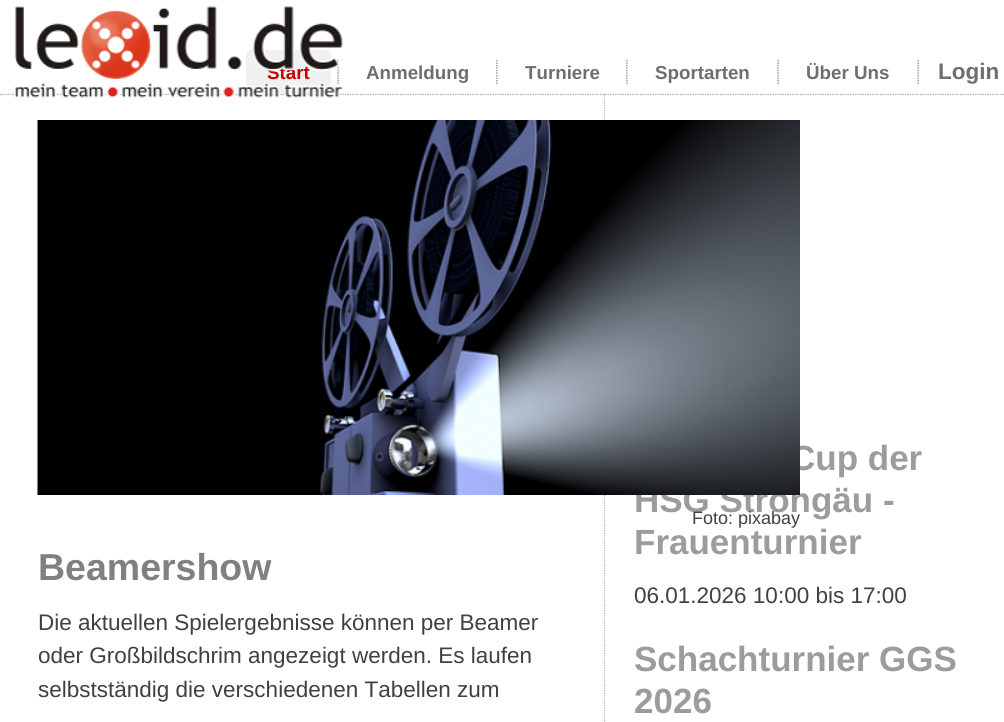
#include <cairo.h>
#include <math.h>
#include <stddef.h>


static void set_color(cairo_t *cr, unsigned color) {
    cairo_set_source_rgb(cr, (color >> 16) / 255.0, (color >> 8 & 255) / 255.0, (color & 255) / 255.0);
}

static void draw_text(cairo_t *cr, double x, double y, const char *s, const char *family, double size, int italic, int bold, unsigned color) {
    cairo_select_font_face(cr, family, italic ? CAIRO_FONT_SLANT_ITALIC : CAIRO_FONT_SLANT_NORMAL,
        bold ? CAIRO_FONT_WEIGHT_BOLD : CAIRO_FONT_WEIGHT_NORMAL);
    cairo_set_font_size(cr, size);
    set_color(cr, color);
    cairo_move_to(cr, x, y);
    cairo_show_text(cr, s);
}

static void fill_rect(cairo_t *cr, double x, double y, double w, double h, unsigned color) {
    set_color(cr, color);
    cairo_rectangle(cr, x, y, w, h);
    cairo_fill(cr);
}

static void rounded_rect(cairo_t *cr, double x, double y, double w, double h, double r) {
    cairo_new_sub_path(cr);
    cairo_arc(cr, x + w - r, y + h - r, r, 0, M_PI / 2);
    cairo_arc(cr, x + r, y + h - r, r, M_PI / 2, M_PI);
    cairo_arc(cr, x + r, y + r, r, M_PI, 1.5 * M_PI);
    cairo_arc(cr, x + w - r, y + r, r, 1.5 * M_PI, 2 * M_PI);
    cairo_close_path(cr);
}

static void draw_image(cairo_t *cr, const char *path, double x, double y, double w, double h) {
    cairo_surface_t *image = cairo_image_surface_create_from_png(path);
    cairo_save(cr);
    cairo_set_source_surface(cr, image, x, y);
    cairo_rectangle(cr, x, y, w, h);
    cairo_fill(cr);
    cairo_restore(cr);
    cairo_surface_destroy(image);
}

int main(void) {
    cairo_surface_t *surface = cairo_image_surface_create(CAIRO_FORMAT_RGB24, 1004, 722);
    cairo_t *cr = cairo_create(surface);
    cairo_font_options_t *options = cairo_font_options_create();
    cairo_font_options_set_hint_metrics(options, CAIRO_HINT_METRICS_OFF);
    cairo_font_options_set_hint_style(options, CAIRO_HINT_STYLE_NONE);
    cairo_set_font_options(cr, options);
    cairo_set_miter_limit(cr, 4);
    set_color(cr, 0xFFFFFF);
    cairo_paint(cr);
    cairo_new_path(cr);
    cairo_move_to(cr, 0, 94.5);
    cairo_line_to(cr, 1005, 94.5);
    set_color(cr, 0xB5B5B5);
    cairo_set_line_width(cr, 1.2);
    cairo_set_dash(cr, (double[]){1.25, 1.25}, 2, 0);
    cairo_stroke(cr);
    fill_rect(cr, 0, 95, 1004, 1, 0xFFFFFF);
    cairo_new_path(cr);
    cairo_move_to(cr, 604.5, 95);
    cairo_line_to(cr, 604.5, 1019);
    set_color(cr, 0xB5B5B5);
    cairo_stroke(cr);
    cairo_new_path(cr);
    cairo_move_to(cr, 0, 94.5);
    cairo_line_to(cr, 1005, 94.5);
    cairo_stroke(cr);
    set_color(cr, 0xF0F0F0);
    rounded_rect(cr, 246, 50, 85, 44, 4);
    cairo_fill(cr);
    draw_text(cr, 267, 79, "Start", "Liberation Sans", 18.75, 0, 1, 0xC20000);
    draw_image(cr, "assets/img2.png", 337, 59, 2, 25);
    draw_image(cr, "assets/img1.png", 13, 6, 330, 92);
    draw_text(cr, 366, 79, "Anmeldung", "Liberation Sans", 18.75, 0, 1, 0x6E6E6E);
    draw_image(cr, "assets/img3.png", 496, 59, 2, 25);
    draw_text(cr, 525, 79, "Turniere", "Liberation Sans", 18.75, 0, 1, 0x6E6E6E);
    draw_image(cr, "assets/img3.png", 626, 59, 2, 25);
    draw_text(cr, 655, 79, "Sportarten", "Liberation Sans", 18.75, 0, 1, 0x6E6E6E);
    draw_image(cr, "assets/img2.png", 777, 59, 2, 25);
    draw_text(cr, 806, 79, "Über Uns", "Liberation Sans", 18.75, 0, 1, 0x6E6E6E);
    draw_image(cr, "assets/img2.png", 917, 59, 2, 25);
    draw_text(cr, 938, 79, "Login", "Liberation Sans", 22.5, 0, 1, 0x6E6E6E);
    draw_text(cr, 790, 470, "Cup der", "Liberation Sans", 35, 0, 1, 0x9C9C9C);
    draw_text(cr, 634, 512, "HSG Strohgäu -", "Liberation Sans", 35, 0, 1, 0x9C9C9C);
    draw_text(cr, 634, 554, "Frauenturnier", "Liberation Sans", 35, 0, 1, 0x9C9C9C);
    draw_text(cr, 634, 603, "06.01.2026 10:00 bis 17:00", "Liberation Sans", 22.5, 0, 0, 0x404040);
    draw_text(cr, 634, 671, "Schachturnier GGS", "Liberation Sans", 35, 0, 1, 0x9C9C9C);
    draw_text(cr, 634, 713, "2026", "Liberation Sans", 35, 0, 1, 0x9C9C9C);
    draw_image(cr, "assets/img4.png", 37, 120, 763, 375);
    draw_text(cr, 692, 524, "Foto: pixabay", "Liberation Sans", 18, 0, 0, 0x404040);
    draw_text(cr, 38, 580, "Beamershow", "Liberation Sans", 37.5, 0, 1, 0x808080);
    draw_text(cr, 38, 630, "Die aktuellen Spielergebnisse können per Beamer", "Liberation Sans", 22.5, 0, 0, 0x404040);
    draw_text(cr, 38, 663, "oder Großbildschrim angezeigt werden. Es laufen", "Liberation Sans", 22.5, 0, 0, 0x404040);
    draw_text(cr, 38, 697, "selbstständig die verschiedenen Tabellen zum", "Liberation Sans", 22.5, 0, 0, 0x404040);
    cairo_surface_write_to_png(surface, "output.png");
    cairo_font_options_destroy(options);
    cairo_destroy(cr);
    cairo_surface_destroy(surface);
    return 0;
}
